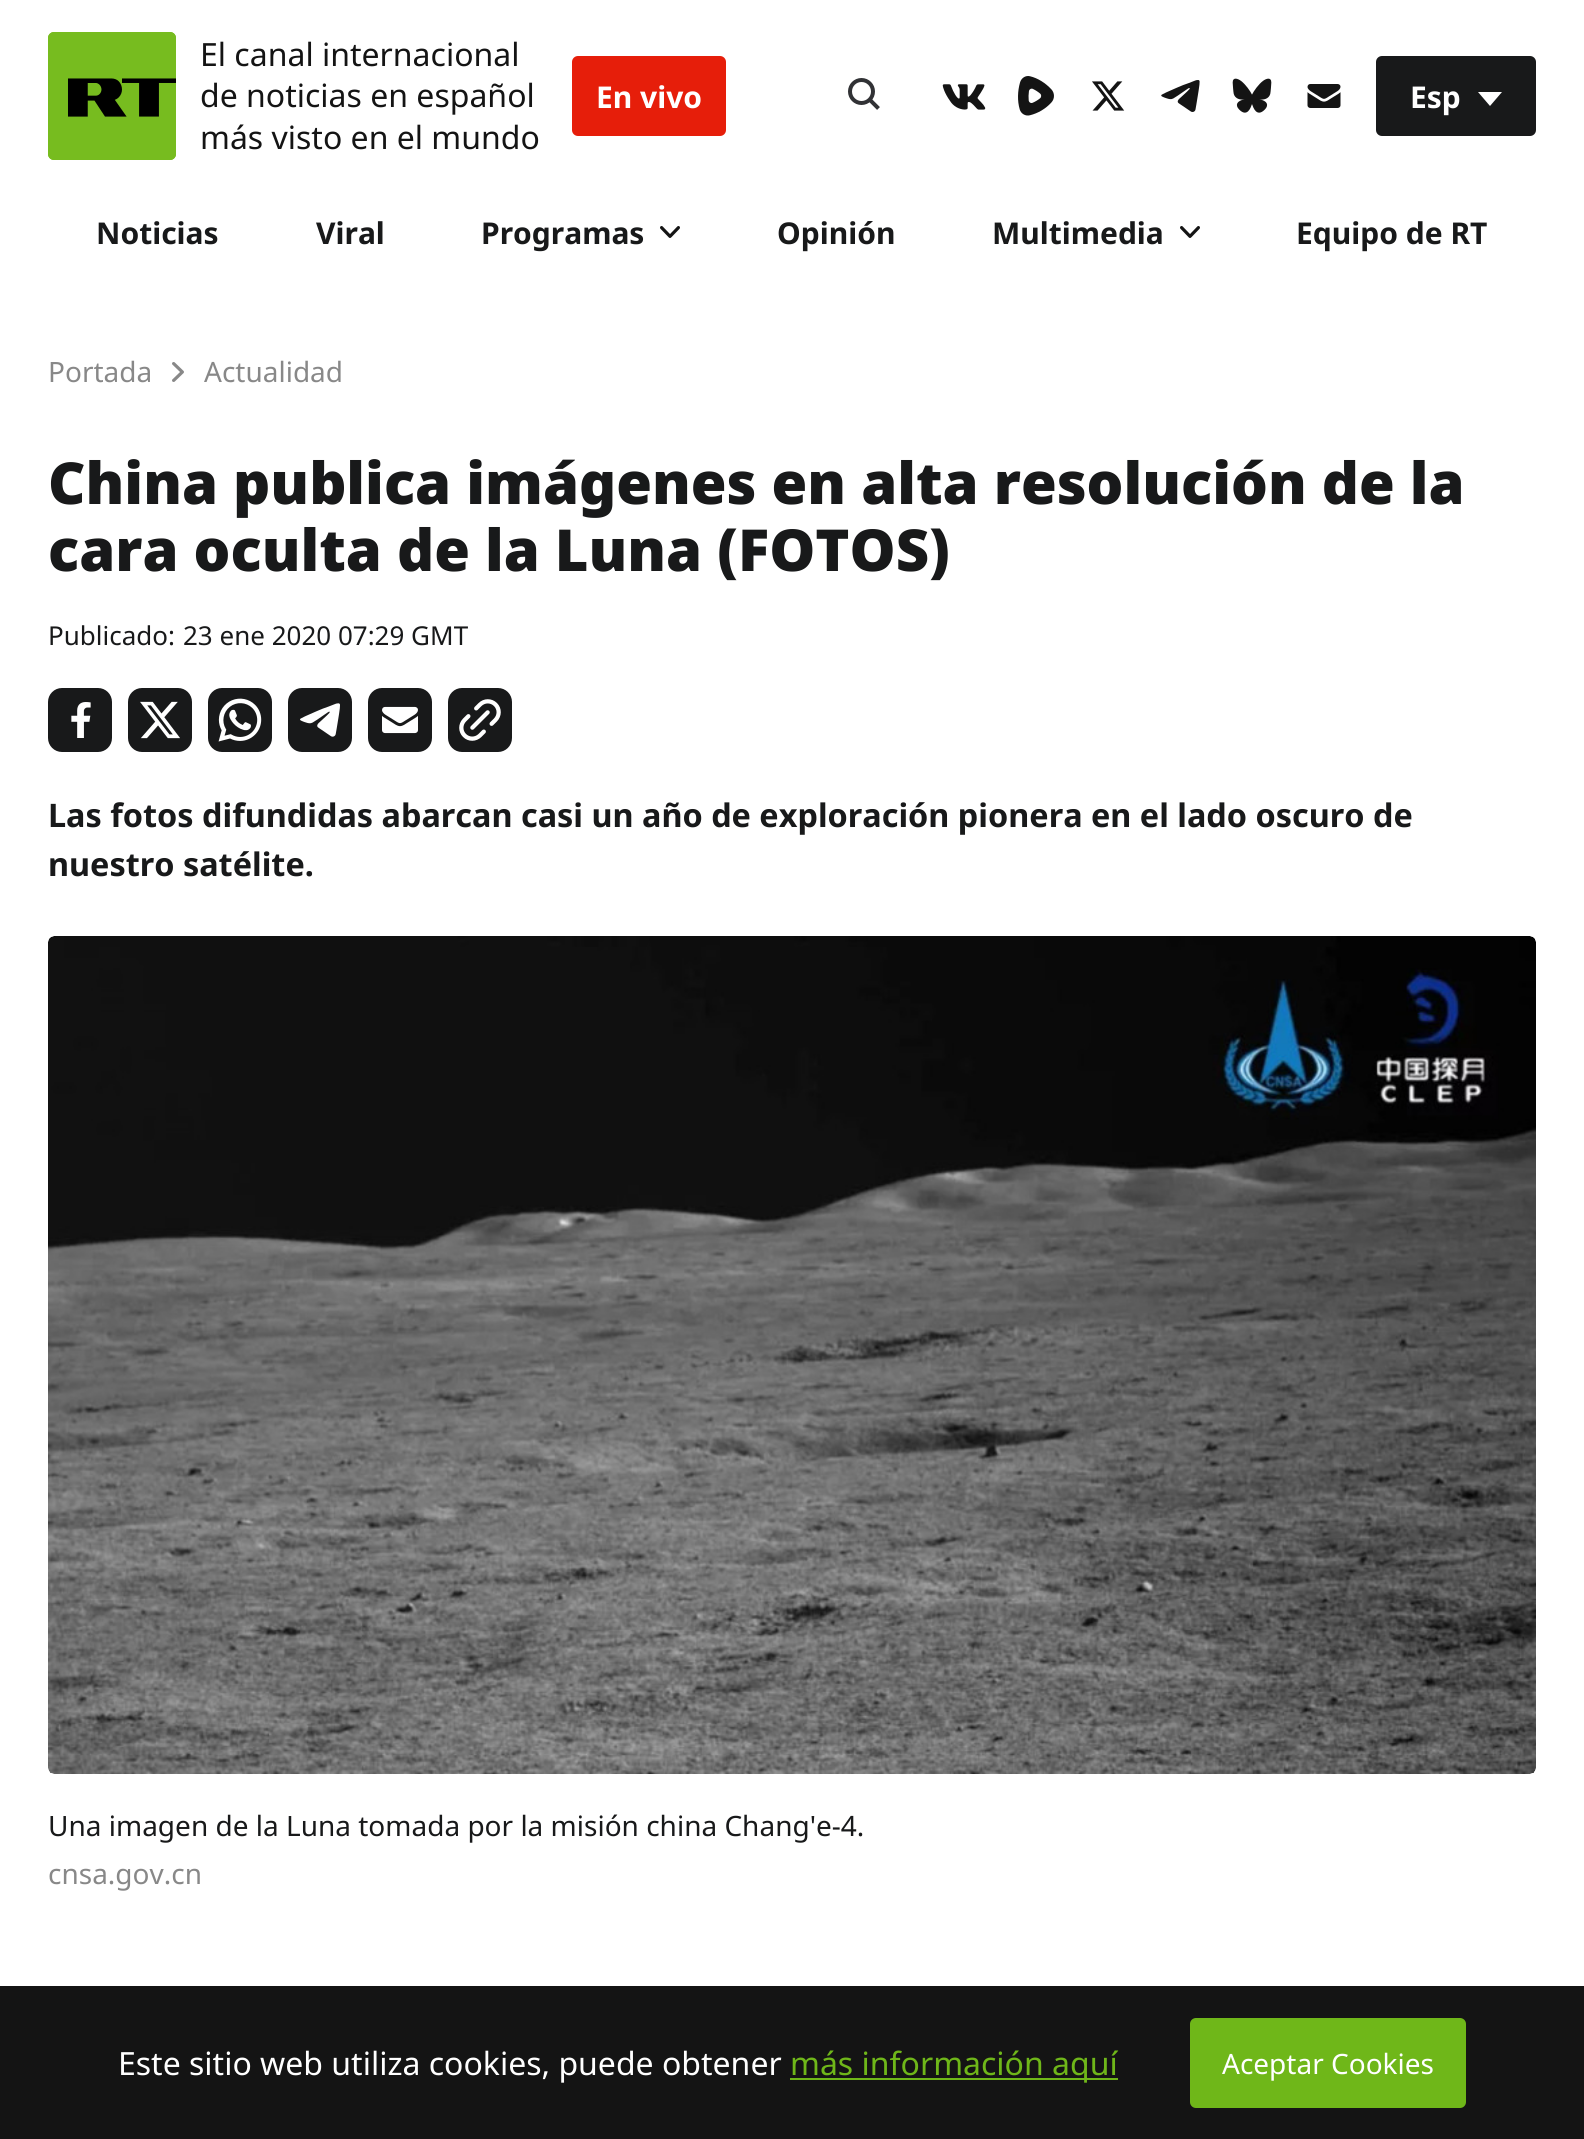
#include <cairo.h>
#include <math.h>
#include <stddef.h>


static void set_color(cairo_t *cr, unsigned color) {
    cairo_set_source_rgb(cr, (color >> 16) / 255.0, (color >> 8 & 255) / 255.0, (color & 255) / 255.0);
}

static void draw_text(cairo_t *cr, double x, double y, const char *s, const char *family, double size, int italic, int bold, unsigned color) {
    cairo_select_font_face(cr, family, italic ? CAIRO_FONT_SLANT_ITALIC : CAIRO_FONT_SLANT_NORMAL,
        bold ? CAIRO_FONT_WEIGHT_BOLD : CAIRO_FONT_WEIGHT_NORMAL);
    cairo_set_font_size(cr, size);
    set_color(cr, color);
    cairo_move_to(cr, x, y);
    cairo_show_text(cr, s);
}

static void fill_rect(cairo_t *cr, double x, double y, double w, double h, unsigned color) {
    set_color(cr, color);
    cairo_rectangle(cr, x, y, w, h);
    cairo_fill(cr);
}

static void rounded_rect(cairo_t *cr, double x, double y, double w, double h, double r) {
    cairo_new_sub_path(cr);
    cairo_arc(cr, x + w - r, y + h - r, r, 0, M_PI / 2);
    cairo_arc(cr, x + r, y + h - r, r, M_PI / 2, M_PI);
    cairo_arc(cr, x + r, y + r, r, M_PI, 1.5 * M_PI);
    cairo_arc(cr, x + w - r, y + r, r, 1.5 * M_PI, 2 * M_PI);
    cairo_close_path(cr);
}

static void draw_image(cairo_t *cr, const char *path, double x, double y, double w, double h) {
    cairo_surface_t *image = cairo_image_surface_create_from_png(path);
    cairo_save(cr);
    cairo_set_source_surface(cr, image, x, y);
    cairo_rectangle(cr, x, y, w, h);
    cairo_fill(cr);
    cairo_restore(cr);
    cairo_surface_destroy(image);
}

int main(void) {
    cairo_surface_t *surface = cairo_image_surface_create(CAIRO_FORMAT_RGB24, 1584, 2139);
    cairo_t *cr = cairo_create(surface);
    cairo_font_options_t *options = cairo_font_options_create();
    cairo_font_options_set_hint_metrics(options, CAIRO_HINT_METRICS_OFF);
    cairo_font_options_set_hint_style(options, CAIRO_HINT_STYLE_NONE);
    cairo_set_font_options(cr, options);
    cairo_set_miter_limit(cr, 4);
    set_color(cr, 0xFFFFFF);
    cairo_paint(cr);
    draw_image(cr, "assets/img1.png", 48, 32, 128, 128);
    draw_text(cr, 200, 66, "El canal internacional", "Noto Sans", 32, 0, 0, 0x141414);
    draw_text(cr, 200, 107, "de noticias en español", "Noto Sans", 32, 0, 0, 0x141414);
    draw_text(cr, 200, 149, "más visto en el mundo", "Noto Sans", 32, 0, 0, 0x141414);
    set_color(cr, 0xE61E0A);
    rounded_rect(cr, 572, 56, 154, 80, 6);
    cairo_fill(cr);
    draw_text(cr, 596, 108, "En vivo", "Noto Sans", 30, 0, 1, 0xFFFFFF);
    cairo_new_path(cr);
    cairo_arc(cr, 861.5, 91.5, 11.5, 0, 2 * M_PI);
    set_color(cr, 0x313235);
    cairo_set_line_width(cr, 4);
    cairo_stroke(cr);
    cairo_new_path(cr);
    cairo_move_to(cr, 870, 100);
    cairo_line_to(cr, 878.5, 108.5);
    cairo_stroke(cr);
    draw_image(cr, "assets/img2.png", 942, 84, 44, 26);
    draw_image(cr, "assets/img3.png", 1018, 76, 36, 40);
    draw_image(cr, "assets/img4.png", 1092, 81, 33, 30);
    draw_image(cr, "assets/img5.png", 1161, 80, 39, 32);
    draw_image(cr, "assets/img6.png", 1232, 78, 40, 35);
    draw_image(cr, "assets/img7.png", 1307, 84, 34, 24);
    set_color(cr, 0x18191A);
    rounded_rect(cr, 1376, 56, 160, 80, 6);
    cairo_fill(cr);
    draw_text(cr, 1410, 108, "Esp", "Noto Sans", 30, 0, 1, 0xFFFFFF);
    cairo_new_path(cr);
    cairo_move_to(cr, 1478, 92);
    cairo_line_to(cr, 1502, 92);
    cairo_line_to(cr, 1490, 106);
    cairo_close_path(cr);
    cairo_fill(cr);
    draw_text(cr, 96, 244, "Noticias", "Noto Sans", 30, 0, 1, 0x18191A);
    draw_text(cr, 316, 244, "Viral", "Noto Sans", 30, 0, 1, 0x18191A);
    draw_text(cr, 481, 244, "Programas", "Noto Sans", 30, 0, 1, 0x18191A);
    draw_image(cr, "assets/img8.png", 660, 226, 20, 12);
    draw_text(cr, 777, 244, "Opinión", "Noto Sans", 30, 0, 1, 0x18191A);
    draw_text(cr, 992, 244, "Multimedia", "Noto Sans", 30, 0, 1, 0x18191A);
    draw_image(cr, "assets/img8.png", 1180, 226, 20, 12);
    draw_text(cr, 1296, 244, "Equipo de RT", "Noto Sans", 30, 0, 1, 0x18191A);
    draw_text(cr, 48, 382, "Portada", "Noto Sans", 28, 0, 0, 0x888888);
    draw_image(cr, "assets/img9.png", 172, 362, 12, 20);
    draw_text(cr, 204, 382, "Actualidad", "Noto Sans", 28, 0, 0, 0x888888);
    draw_text(cr, 48, 504, "China publica imágenes en alta resolución de la", "Noto Sans Black", 57.9, 0, 0, 0x18191A);
    draw_text(cr, 48, 571, "cara oculta de la Luna (FOTOS)", "Noto Sans Black", 57.9, 0, 0, 0x18191A);
    draw_text(cr, 48, 645, "Publicado:", "Noto Sans", 26, 0, 0, 0x18191A);
    draw_text(cr, 183, 645, "23 ene 2020 07:29 GMT", "Noto Sans", 26, 0, 0, 0x18191A);
    rounded_rect(cr, 48, 688, 64, 64, 14);
    cairo_fill(cr);
    draw_image(cr, "assets/img10.png", 71, 702, 20, 36);
    rounded_rect(cr, 128, 688, 64, 64, 14);
    cairo_fill(cr);
    draw_image(cr, "assets/img11.png", 140, 701, 40, 38);
    rounded_rect(cr, 208, 688, 64, 64, 14);
    cairo_fill(cr);
    draw_image(cr, "assets/img12.png", 218, 698, 44, 44);
    rounded_rect(cr, 288, 688, 64, 64, 14);
    cairo_fill(cr);
    draw_image(cr, "assets/img13.png", 300, 703, 40, 34);
    rounded_rect(cr, 368, 688, 64, 64, 14);
    cairo_fill(cr);
    draw_image(cr, "assets/img14.png", 382, 706, 36, 28);
    rounded_rect(cr, 448, 688, 64, 64, 14);
    cairo_fill(cr);
    draw_image(cr, "assets/img15.png", 459, 699, 42, 42);
    draw_text(cr, 48, 827, "Las fotos difundidas abarcan casi un año de exploración pionera en el lado oscuro de", "Noto Sans", 32.4, 0, 1, 0x18191A);
    draw_text(cr, 48, 876, "nuestro satélite.", "Noto Sans", 32.4, 0, 1, 0x18191A);
    draw_image(cr, "assets/img16.png", 48, 936, 1488, 838);
    draw_text(cr, 48, 1836, "Una imagen de la Luna tomada por la misión china Chang'e-4.", "Noto Sans", 28, 0, 0, 0x18191A);
    draw_text(cr, 48, 1884, "cnsa.gov.cn", "Noto Sans", 28, 0, 0, 0x888888);
    fill_rect(cr, 0, 1986, 1584, 153, 0x141414);
    draw_text(cr, 118, 2075, "Este sitio web utiliza cookies, puede obtener", "Noto Sans", 32, 0, 0, 0xFFFFFF);
    fill_rect(cr, 790, 2078, 328, 2, 0x6FB719);
    draw_text(cr, 790, 2075, "más información aquí", "Noto Sans", 32, 0, 0, 0x6FB719);
    rounded_rect(cr, 1190, 2018, 276, 90, 6);
    cairo_fill(cr);
    draw_text(cr, 1222, 2074, "Aceptar Cookies", "Noto Sans", 28, 0, 0, 0xFFFFFF);
    cairo_surface_write_to_png(surface, "output.png");
    cairo_font_options_destroy(options);
    cairo_destroy(cr);
    cairo_surface_destroy(surface);
    return 0;
}
